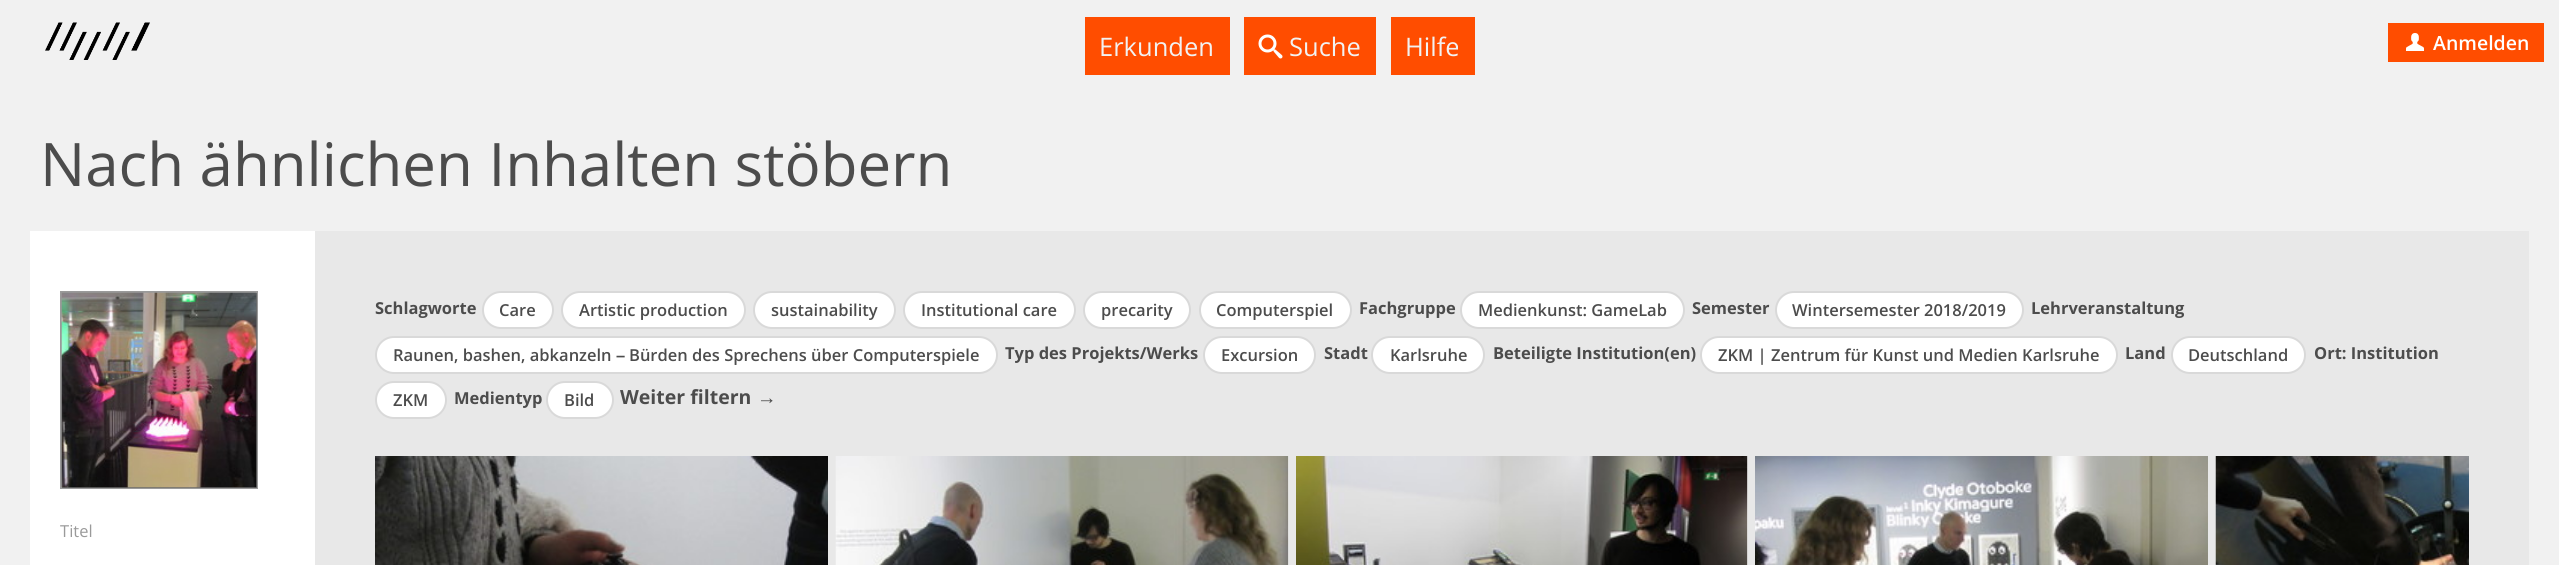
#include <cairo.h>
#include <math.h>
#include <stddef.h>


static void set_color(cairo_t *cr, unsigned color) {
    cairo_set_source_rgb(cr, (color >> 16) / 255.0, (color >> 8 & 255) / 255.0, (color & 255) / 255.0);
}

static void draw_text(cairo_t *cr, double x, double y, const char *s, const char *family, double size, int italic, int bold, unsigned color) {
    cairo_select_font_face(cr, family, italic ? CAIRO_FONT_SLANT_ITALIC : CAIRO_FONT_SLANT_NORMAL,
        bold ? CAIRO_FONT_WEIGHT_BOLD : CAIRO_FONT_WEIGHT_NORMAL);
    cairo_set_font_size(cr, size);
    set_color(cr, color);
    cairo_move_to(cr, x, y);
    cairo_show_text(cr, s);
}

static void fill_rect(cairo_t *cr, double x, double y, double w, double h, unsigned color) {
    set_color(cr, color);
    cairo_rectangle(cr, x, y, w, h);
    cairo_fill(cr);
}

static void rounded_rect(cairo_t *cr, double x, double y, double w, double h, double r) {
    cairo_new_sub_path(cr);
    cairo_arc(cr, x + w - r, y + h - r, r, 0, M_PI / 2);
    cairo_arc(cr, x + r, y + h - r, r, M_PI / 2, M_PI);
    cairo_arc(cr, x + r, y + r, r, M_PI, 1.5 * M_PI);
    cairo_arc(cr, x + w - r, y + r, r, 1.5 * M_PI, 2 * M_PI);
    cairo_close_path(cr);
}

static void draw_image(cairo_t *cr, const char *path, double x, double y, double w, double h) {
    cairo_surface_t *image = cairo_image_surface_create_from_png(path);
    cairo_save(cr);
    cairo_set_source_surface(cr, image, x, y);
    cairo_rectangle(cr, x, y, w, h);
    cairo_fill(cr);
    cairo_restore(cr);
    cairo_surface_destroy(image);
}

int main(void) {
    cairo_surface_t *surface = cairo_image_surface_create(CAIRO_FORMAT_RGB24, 2559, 565);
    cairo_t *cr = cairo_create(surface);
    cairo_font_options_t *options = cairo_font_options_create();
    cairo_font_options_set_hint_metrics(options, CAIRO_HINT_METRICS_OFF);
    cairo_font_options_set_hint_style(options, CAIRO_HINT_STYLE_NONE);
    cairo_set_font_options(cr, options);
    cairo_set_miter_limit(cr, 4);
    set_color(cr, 0xF1F1F1);
    cairo_paint(cr);
    draw_image(cr, "assets/img1.png", 45, 22, 105, 38);
    fill_rect(cr, 1085, 17, 145, 58, 0xFF4D00);
    draw_text(cr, 1099, 56, "Erkunden", "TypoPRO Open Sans", 25.5, 0, 0, 0xF2F2F2);
    fill_rect(cr, 1244, 17, 132, 58, 0xFF4D00);
    draw_image(cr, "assets/img2.png", 1258, 34, 25, 25);
    draw_text(cr, 1289, 56, "Suche", "TypoPRO Open Sans", 25.5, 0, 0, 0xF2F2F2);
    fill_rect(cr, 1391, 17, 84, 58, 0xFF4D00);
    draw_text(cr, 1405, 56, "Hilfe", "TypoPRO Open Sans", 25.5, 0, 0, 0xF2F2F2);
    fill_rect(cr, 2388, 23, 156, 39, 0xFF4D00);
    draw_image(cr, "assets/img3.png", 2406, 33, 18, 18);
    draw_text(cr, 2433, 50, "Anmelden", "TypoPRO Open Sans SemiBold", 19.5, 0, 0, 0xFFFFFF);
    draw_text(cr, 40, 186, "Nach ähnlichen Inhalten stöbern", "TypoPRO Open Sans", 60, 0, 0, 0x4C4C4C);
    fill_rect(cr, 315, 231, 2214, 334, 0xE8E8E8);
    draw_text(cr, 375, 314, "Schlagworte", "TypoPRO Open Sans", 16.5, 0, 1, 0x4C4C4C);
    set_color(cr, 0xFFFFFF);
    rounded_rect(cr, 483, 292, 70, 36, 18);
    cairo_fill_preserve(cr);
    set_color(cr, 0xD9D9D9);
    cairo_stroke(cr);
    draw_text(cr, 499, 316, "Care", "TypoPRO Open Sans SemiBold", 16.5, 0, 0, 0x4C4C4C);
    set_color(cr, 0xFFFFFF);
    rounded_rect(cr, 562, 292, 183, 36, 18);
    cairo_fill_preserve(cr);
    set_color(cr, 0xD9D9D9);
    cairo_stroke(cr);
    draw_text(cr, 579, 316, "Artistic production", "TypoPRO Open Sans SemiBold", 16.5, 0, 0, 0x4C4C4C);
    set_color(cr, 0xFFFFFF);
    rounded_rect(cr, 754, 292, 141, 36, 18);
    cairo_fill_preserve(cr);
    set_color(cr, 0xD9D9D9);
    cairo_stroke(cr);
    draw_text(cr, 771, 316, "sustainability", "TypoPRO Open Sans SemiBold", 16.5, 0, 0, 0x4C4C4C);
    set_color(cr, 0xFFFFFF);
    rounded_rect(cr, 904, 292, 171, 36, 18);
    cairo_fill_preserve(cr);
    set_color(cr, 0xD9D9D9);
    cairo_stroke(cr);
    draw_text(cr, 921, 316, "Institutional care", "TypoPRO Open Sans SemiBold", 16.5, 0, 0, 0x4C4C4C);
    set_color(cr, 0xFFFFFF);
    rounded_rect(cr, 1084, 292, 106, 36, 18);
    cairo_fill_preserve(cr);
    set_color(cr, 0xD9D9D9);
    cairo_stroke(cr);
    draw_text(cr, 1101, 316, "precarity", "TypoPRO Open Sans SemiBold", 16.5, 0, 0, 0x4C4C4C);
    set_color(cr, 0xFFFFFF);
    rounded_rect(cr, 1200, 292, 151, 36, 18);
    cairo_fill_preserve(cr);
    set_color(cr, 0xD9D9D9);
    cairo_stroke(cr);
    draw_text(cr, 1216, 316, "Computerspiel", "TypoPRO Open Sans SemiBold", 16.5, 0, 0, 0x4C4C4C);
    draw_text(cr, 2031, 314, "Lehrveranstaltung", "TypoPRO Open Sans", 16.5, 0, 1, 0x4C4C4C);
    set_color(cr, 0xFFFFFF);
    rounded_rect(cr, 376, 337, 621, 36, 18);
    cairo_fill_preserve(cr);
    set_color(cr, 0xD9D9D9);
    cairo_stroke(cr);
    draw_text(cr, 393, 361, "Raunen, bashen, abkanzeln", "TypoPRO Open Sans SemiBold", 16.5, 0, 0, 0x4C4C4C);
    draw_text(cr, 616, 361, "–", "Liberation Sans", 16.5, 0, 1, 0x4C4C4C);
    draw_text(cr, 629, 361, "Bürden des Sprechens über Computerspiele", "TypoPRO Open Sans SemiBold", 16.5, 0, 0, 0x4C4C4C);
    draw_text(cr, 1359, 314, "Fachgruppe", "TypoPRO Open Sans", 16.5, 0, 1, 0x4C4C4C);
    set_color(cr, 0xFFFFFF);
    rounded_rect(cr, 1461, 292, 223, 36, 18);
    cairo_fill_preserve(cr);
    set_color(cr, 0xD9D9D9);
    cairo_stroke(cr);
    draw_text(cr, 1478, 316, "Medienkunst: GameLab", "TypoPRO Open Sans SemiBold", 16.5, 0, 0, 0x4C4C4C);
    draw_text(cr, 1692, 314, "Semester", "TypoPRO Open Sans", 16.5, 0, 1, 0x4C4C4C);
    set_color(cr, 0xFFFFFF);
    rounded_rect(cr, 1776, 292, 247, 36, 18);
    cairo_fill_preserve(cr);
    set_color(cr, 0xD9D9D9);
    cairo_stroke(cr);
    draw_text(cr, 1792, 316, "Wintersemester 2018/2019", "TypoPRO Open Sans SemiBold", 16.5, 0, 0, 0x4C4C4C);
    draw_text(cr, 2314, 359, "Ort: Institution", "TypoPRO Open Sans", 16.5, 0, 1, 0x4C4C4C);
    set_color(cr, 0xFFFFFF);
    rounded_rect(cr, 376, 382, 70, 36, 18);
    cairo_fill_preserve(cr);
    set_color(cr, 0xD9D9D9);
    cairo_stroke(cr);
    draw_text(cr, 393, 406, "ZKM", "TypoPRO Open Sans SemiBold", 16.5, 0, 0, 0x4C4C4C);
    draw_text(cr, 1005, 359, "Typ des Projekts/Werks", "TypoPRO Open Sans", 16.5, 0, 1, 0x4C4C4C);
    set_color(cr, 0xFFFFFF);
    rounded_rect(cr, 1204, 337, 111, 36, 18);
    cairo_fill_preserve(cr);
    set_color(cr, 0xD9D9D9);
    cairo_stroke(cr);
    draw_text(cr, 1221, 361, "Excursion", "TypoPRO Open Sans SemiBold", 16.5, 0, 0, 0x4C4C4C);
    draw_text(cr, 1324, 359, "Stadt", "TypoPRO Open Sans", 16.5, 0, 1, 0x4C4C4C);
    set_color(cr, 0xFFFFFF);
    rounded_rect(cr, 1372, 337, 112, 36, 18);
    cairo_fill_preserve(cr);
    set_color(cr, 0xD9D9D9);
    cairo_stroke(cr);
    draw_text(cr, 1390, 361, "Karlsruhe", "TypoPRO Open Sans SemiBold", 16.5, 0, 0, 0x4C4C4C);
    draw_text(cr, 1493, 359, "Beteiligte Institution(en)", "TypoPRO Open Sans", 16.5, 0, 1, 0x4C4C4C);
    set_color(cr, 0xFFFFFF);
    rounded_rect(cr, 1701, 337, 416, 36, 18);
    cairo_fill_preserve(cr);
    set_color(cr, 0xD9D9D9);
    cairo_stroke(cr);
    draw_text(cr, 1718, 361, "ZKM | Zentrum für Kunst und Medien Karlsruhe", "TypoPRO Open Sans SemiBold", 16.5, 0, 0, 0x4C4C4C);
    draw_text(cr, 2125, 359, "Land", "TypoPRO Open Sans", 16.5, 0, 1, 0x4C4C4C);
    set_color(cr, 0xFFFFFF);
    rounded_rect(cr, 2172, 337, 133, 36, 18);
    cairo_fill_preserve(cr);
    set_color(cr, 0xD9D9D9);
    cairo_stroke(cr);
    draw_text(cr, 2188, 361, "Deutschland", "TypoPRO Open Sans SemiBold", 16.5, 0, 0, 0x4C4C4C);
    draw_text(cr, 454, 404, "Medientyp", "TypoPRO Open Sans", 16.5, 0, 1, 0x4C4C4C);
    set_color(cr, 0xFFFFFF);
    rounded_rect(cr, 547, 382, 66, 36, 18);
    cairo_fill_preserve(cr);
    set_color(cr, 0xD9D9D9);
    cairo_stroke(cr);
    draw_text(cr, 564, 406, "Bild", "TypoPRO Open Sans SemiBold", 16.5, 0, 0, 0x4C4C4C);
    draw_text(cr, 620, 404, "Weiter filtern", "TypoPRO Open Sans", 19.5, 0, 1, 0x4C4C4C);
    draw_text(cr, 757, 404, "→", "Liberation Sans", 19.5, 0, 1, 0x4C4C4C);
    draw_image(cr, "assets/img4.png", 375, 456, 453, 109);
    fill_rect(cr, 1288, 456, 1, 109, 0xFFFFFF);
    draw_image(cr, "assets/img5.png", 835, 456, 454, 109);
    fill_rect(cr, 1747, 456, 1, 109, 0xFFFFFF);
    draw_image(cr, "assets/img6.png", 1296, 456, 452, 109);
    draw_image(cr, "assets/img7.png", 1755, 456, 453, 109);
    draw_image(cr, "assets/img8.png", 2215, 456, 254, 109);
    fill_rect(cr, 30, 231, 285, 334, 0xFFFFFF);
    cairo_rectangle(cr, 61, 292, 196, 196);
    set_color(cr, 0x9A9A9A);
    cairo_stroke(cr);
    cairo_set_source_rgba(cr, 0.004, 0.004, 0.004, 0.3);
    cairo_rectangle(cr, 62, 293, 195, 195);
    cairo_fill(cr);
    draw_image(cr, "assets/img9.png", 61, 292, 196, 196);
    draw_text(cr, 60, 537, "Titel", "TypoPRO Open Sans", 16.5, 0, 0, 0x9A9A9A);
    cairo_surface_write_to_png(surface, "output.png");
    cairo_font_options_destroy(options);
    cairo_destroy(cr);
    cairo_surface_destroy(surface);
    return 0;
}
